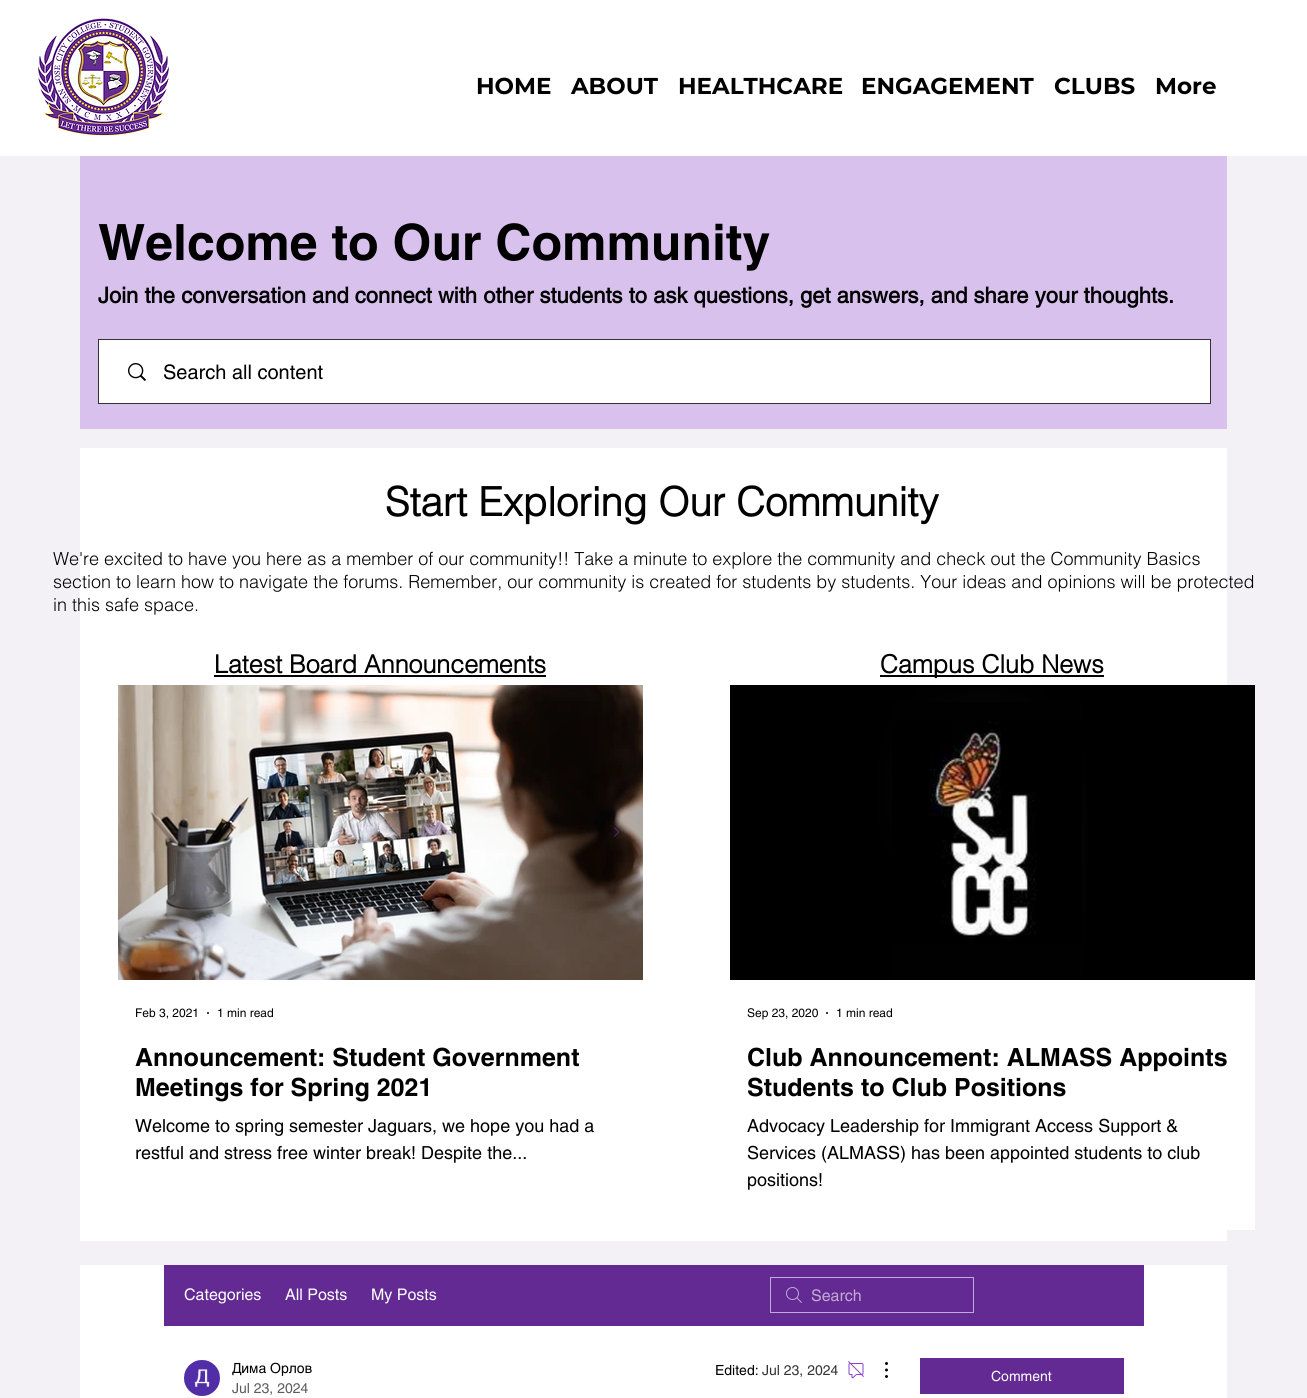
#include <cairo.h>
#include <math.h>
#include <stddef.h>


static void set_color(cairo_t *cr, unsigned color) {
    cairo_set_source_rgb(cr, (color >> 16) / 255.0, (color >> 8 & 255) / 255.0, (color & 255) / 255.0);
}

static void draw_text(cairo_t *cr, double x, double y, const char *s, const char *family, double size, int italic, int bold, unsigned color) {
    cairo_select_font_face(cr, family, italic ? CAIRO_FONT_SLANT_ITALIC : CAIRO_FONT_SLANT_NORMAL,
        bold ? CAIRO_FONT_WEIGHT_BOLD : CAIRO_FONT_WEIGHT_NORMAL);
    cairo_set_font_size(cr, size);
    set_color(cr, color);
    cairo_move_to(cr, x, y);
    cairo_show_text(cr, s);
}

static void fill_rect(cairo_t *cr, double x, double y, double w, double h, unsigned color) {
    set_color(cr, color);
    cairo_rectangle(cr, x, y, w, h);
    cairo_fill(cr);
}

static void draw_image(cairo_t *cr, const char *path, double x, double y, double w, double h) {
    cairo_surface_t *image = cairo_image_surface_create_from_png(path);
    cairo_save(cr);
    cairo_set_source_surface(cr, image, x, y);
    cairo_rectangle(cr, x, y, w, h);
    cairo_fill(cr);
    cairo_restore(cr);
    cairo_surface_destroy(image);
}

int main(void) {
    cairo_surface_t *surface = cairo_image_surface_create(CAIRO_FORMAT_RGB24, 1307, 1398);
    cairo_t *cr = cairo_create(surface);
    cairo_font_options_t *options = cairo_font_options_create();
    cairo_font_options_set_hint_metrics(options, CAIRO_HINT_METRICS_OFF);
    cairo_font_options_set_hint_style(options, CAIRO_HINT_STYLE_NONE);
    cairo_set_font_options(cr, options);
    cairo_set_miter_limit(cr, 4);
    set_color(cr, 0xF3F0F6);
    cairo_paint(cr);
    fill_rect(cr, 0, 0, 1307, 156, 0xFFFFFF);
    draw_image(cr, "assets/img1.png", 38, 18, 131, 118);
    draw_text(cr, 476, 94, "HOME", "Montserrat", 23, 0, 1, 0x000000);
    draw_text(cr, 571, 94, "ABOUT", "Montserrat", 23, 0, 1, 0x000000);
    draw_text(cr, 678, 94, "HEALTHCARE", "Montserrat", 23, 0, 1, 0x000000);
    draw_text(cr, 861, 94, "ENGAGEMENT", "Montserrat", 23, 0, 1, 0x000000);
    draw_text(cr, 1054, 94, "CLUBS", "Montserrat", 23, 0, 1, 0x000000);
    draw_text(cr, 1155, 94, "More", "Montserrat", 23, 0, 1, 0x000000);
    fill_rect(cr, 80, 156, 1147, 273, 0xD9C1ED);
    draw_text(cr, 98, 260, "Welcome to Our Community", "helvetica", 50, 0, 1, 0x000000);
    draw_text(cr, 98, 303, "Join the conversation and connect with other students to ask questions, get answers, and share your thoughts.", "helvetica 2", 22, 0, 1, 0x000000);
    cairo_rectangle(cr, 98.5, 339.5, 1112, 64);
    set_color(cr, 0x323232);
    cairo_set_line_width(cr, 1);
    cairo_stroke(cr);
    fill_rect(cr, 99, 340, 1111, 63, 0xFFFFFF);
    draw_image(cr, "assets/img2.png", 128, 363, 18, 18);
    draw_text(cr, 163, 379, "Search all content", "helvetica", 20, 0, 0, 0x000000);
    fill_rect(cr, 80, 448, 1147, 793, 0xFFFFFF);
    draw_text(cr, 385, 516, "Start Exploring Our Community", "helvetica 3", 40, 0, 1, 0x000000);
    draw_text(cr, 53, 565, "We're excited to have you here as a member of our community!! Take a minute to explore the community and check out the Community Basics", "helvetica Light", 18, 0, 0, 0x000000);
    draw_text(cr, 53, 588, "section to learn how to navigate the forums. Remember, our community is created for students by students. Your ideas and opinions will be protected", "helvetica Light", 18, 0, 0, 0x000000);
    draw_text(cr, 53, 611, "in this safe space.", "helvetica Light", 18, 0, 0, 0x000000);
    draw_text(cr, 214, 673, "Latest Board Announcements", "helvetica 3", 25, 0, 1, 0x000000);
    fill_rect(cr, 214, 675, 332, 2, 0x000000);
    draw_image(cr, "assets/img4.png", 118, 685, 525, 295);
    draw_image(cr, "assets/img3.png", 613, 827, 7, 10);
    draw_text(cr, 135, 1017, "Feb 3, 2021", "helvetica", 12, 0, 0, 0x000000);
    cairo_new_path(cr);
    cairo_arc(cr, 208, 1013, 1, 0, 2 * M_PI);
    cairo_fill(cr);
    draw_text(cr, 217, 1017, "1 min read", "helvetica", 12, 0, 0, 0x000000);
    draw_text(cr, 135, 1066, "Announcement: Student Government", "helvetica", 25, 0, 1, 0x000000);
    draw_text(cr, 135, 1096, "Meetings for Spring 2021", "helvetica", 25, 0, 1, 0x000000);
    draw_text(cr, 135, 1132, "Welcome to spring semester Jaguars, we hope you had a", "helvetica", 18, 0, 0, 0x000000);
    draw_text(cr, 135, 1159, "restful and stress free winter break! Despite the...", "helvetica", 18, 0, 0, 0x000000);
    fill_rect(cr, 880, 675, 224, 2, 0x000000);
    draw_text(cr, 880, 673, "Campus Club News", "helvetica 3", 25, 0, 1, 0x000000);
    draw_image(cr, "assets/img5.png", 730, 685, 525, 295);
    draw_image(cr, "assets/img6.png", 892, 702, 190, 278);
    fill_rect(cr, 1227, 980, 28, 250, 0xFFFFFF);
    draw_text(cr, 747, 1017, "Sep 23, 2020", "helvetica", 12, 0, 0, 0x000000);
    cairo_new_path(cr);
    cairo_arc(cr, 827, 1013, 1, 0, 2 * M_PI);
    cairo_fill(cr);
    draw_text(cr, 836, 1017, "1 min read", "helvetica", 12, 0, 0, 0x000000);
    draw_text(cr, 747, 1066, "Club Announcement: ALMASS Appoints", "helvetica", 25, 0, 1, 0x000000);
    draw_text(cr, 747, 1096, "Students to Club Positions", "helvetica", 25, 0, 1, 0x000000);
    draw_text(cr, 747, 1132, "Advocacy Leadership for Immigrant Access Support &", "helvetica", 18, 0, 0, 0x000000);
    draw_text(cr, 747, 1159, "Services (ALMASS) has been appointed students to club", "helvetica", 18, 0, 0, 0x000000);
    draw_text(cr, 747, 1186, "positions!", "helvetica", 18, 0, 0, 0x000000);
    fill_rect(cr, 80, 1265, 1147, 133, 0xFFFFFF);
    fill_rect(cr, 164, 1265, 980, 61, 0x632A93);
    draw_text(cr, 184, 1300, "Categories", "helvetica", 16, 0, 0, 0xFFFFFF);
    draw_text(cr, 285, 1300, "All Posts", "helvetica", 16, 0, 0, 0xFFFFFF);
    draw_text(cr, 371, 1300, "My Posts", "helvetica", 16, 0, 0, 0xFFFFFF);
    draw_image(cr, "assets/img7.png", 786, 1287, 16, 16);
    cairo_rectangle(cr, 770.5, 1277.5, 203, 35);
    set_color(cr, 0xC1AAD4);
    cairo_stroke(cr);
    draw_text(cr, 811, 1301, "Search", "helvetica", 16, 0, 0, 0xC1AAD4);
    draw_image(cr, "assets/img8.png", 184, 1360, 36, 36);
    cairo_save(cr);
    cairo_rectangle(cr, 232, 1358, 80, 20);
    cairo_clip(cr);
    draw_text(cr, 232, 1373, "Дима Орлов", "helvetica", 14, 0, 0, 0x000000);
    cairo_restore(cr);
    draw_text(cr, 232, 1393, "Jul 23, 2024", "helvetica", 14, 0, 0, 0x5C5C5C);
    draw_text(cr, 715, 1375, "Edited:", "helvetica", 14, 0, 0, 0x000000);
    draw_text(cr, 762, 1375, "Jul 23, 2024", "helvetica", 14, 0, 0, 0x333333);
    draw_image(cr, "assets/img9.png", 848, 1361, 16, 18);
    draw_image(cr, "assets/img10.png", 885, 1362, 3, 16);
    fill_rect(cr, 920, 1358, 204, 36, 0x632A93);
    draw_text(cr, 991, 1381, "Comment", "helvetica", 14, 0, 0, 0xFFFFFF);
    cairo_surface_write_to_png(surface, "output.png");
    cairo_font_options_destroy(options);
    cairo_destroy(cr);
    cairo_surface_destroy(surface);
    return 0;
}
